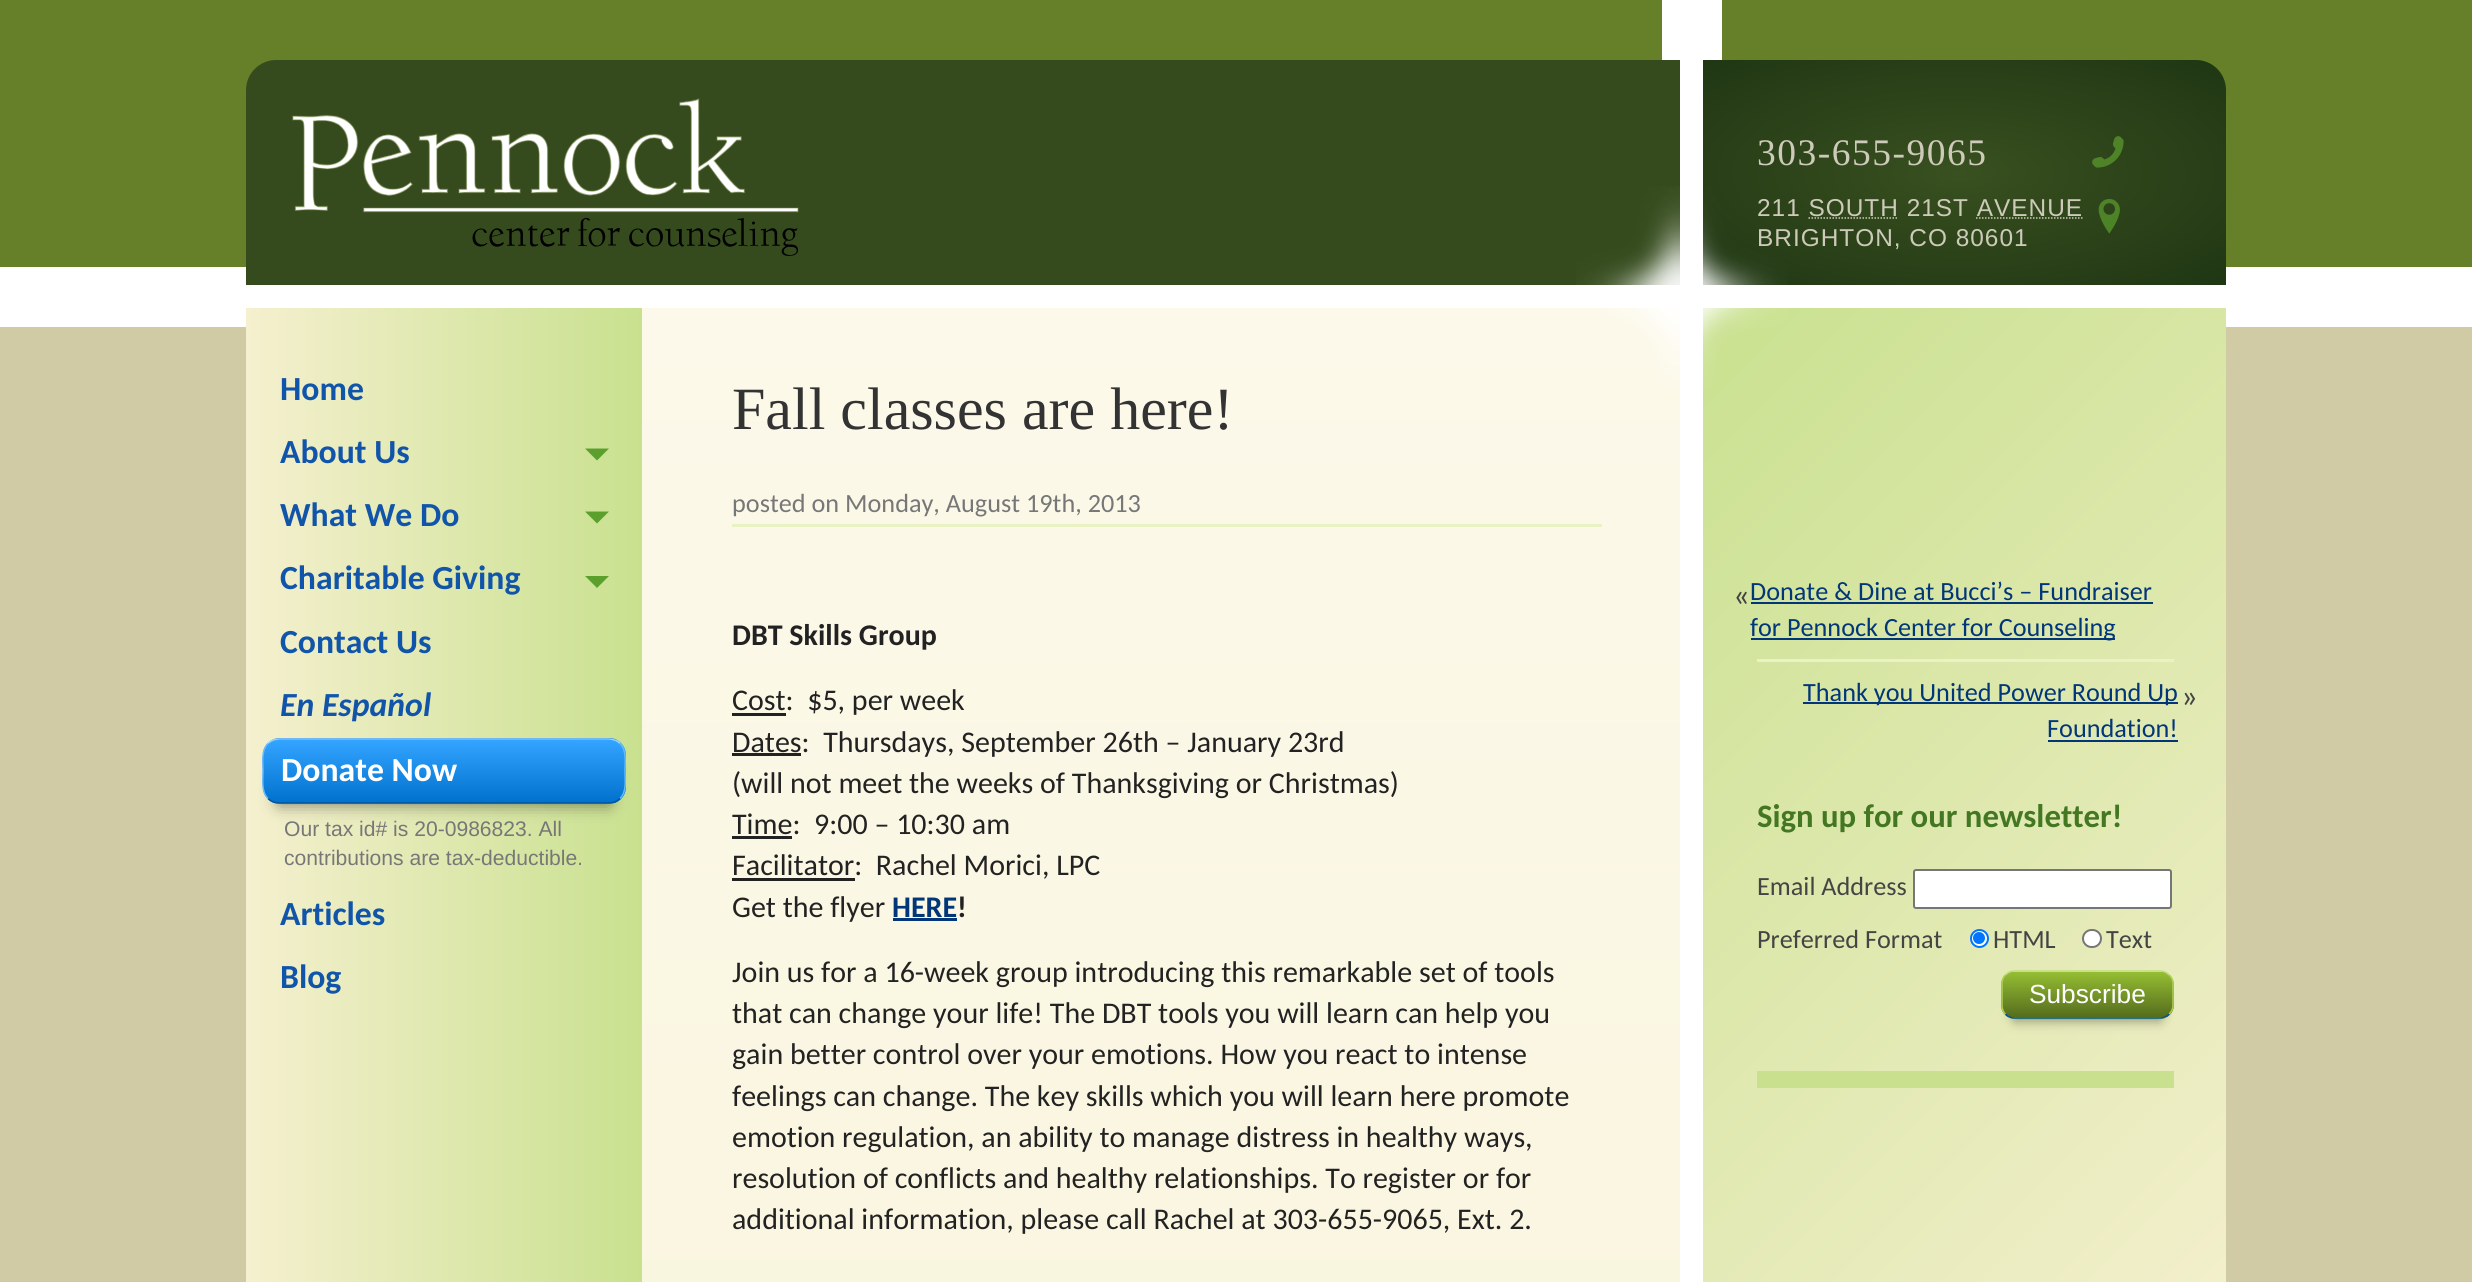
#include <cairo.h>
#include <math.h>
#include <stddef.h>


static void set_color(cairo_t *cr, unsigned color) {
    cairo_set_source_rgb(cr, (color >> 16) / 255.0, (color >> 8 & 255) / 255.0, (color & 255) / 255.0);
}

static void draw_text(cairo_t *cr, double x, double y, const char *s, const char *family, double size, int italic, int bold, unsigned color) {
    cairo_select_font_face(cr, family, italic ? CAIRO_FONT_SLANT_ITALIC : CAIRO_FONT_SLANT_NORMAL,
        bold ? CAIRO_FONT_WEIGHT_BOLD : CAIRO_FONT_WEIGHT_NORMAL);
    cairo_set_font_size(cr, size);
    set_color(cr, color);
    cairo_move_to(cr, x, y);
    cairo_show_text(cr, s);
}

static void draw_spaced(cairo_t *cr, double x, double y, const char *s, double letter, double word) {
    cairo_move_to(cr, x, y);
    while (*s) {
        char ch[5] = {0};
        int n = 0;
        do ch[n++] = *s++; while ((*s & 0xC0) == 0x80);
        cairo_show_text(cr, ch);
        cairo_rel_move_to(cr, letter + word * (*ch == ' '), 0);
    }
}

static void fill_rect(cairo_t *cr, double x, double y, double w, double h, unsigned color) {
    set_color(cr, color);
    cairo_rectangle(cr, x, y, w, h);
    cairo_fill(cr);
}

static void rounded_rect(cairo_t *cr, double x, double y, double w, double h, double r) {
    cairo_new_sub_path(cr);
    cairo_arc(cr, x + w - r, y + h - r, r, 0, M_PI / 2);
    cairo_arc(cr, x + r, y + h - r, r, M_PI / 2, M_PI);
    cairo_arc(cr, x + r, y + r, r, M_PI, 1.5 * M_PI);
    cairo_arc(cr, x + w - r, y + r, r, 1.5 * M_PI, 2 * M_PI);
    cairo_close_path(cr);
}

static void draw_shadow(cairo_t *cr, double x, double y, double w, double h, double r, double blur, double alpha) {
    cairo_push_group_with_content(cr, CAIRO_CONTENT_ALPHA);
    cairo_set_operator(cr, CAIRO_OPERATOR_SOURCE);
    for (int i = 15; i >= -15 && fmin(w, h) + blur * i / 3 > 0; i -= 2) {
        double e = blur * i / 6;
        cairo_set_source_rgba(cr, 0, 0, 0, alpha * erfc((i - 1) / 8.5) / 2);
        rounded_rect(cr, x - e, y - e, w + 2 * e, h + 2 * e, fmax(0, fmin(r + e + blur * .6, fmin(w, h) / 2 + e)));
        cairo_fill(cr);
    }
    cairo_pattern_t *soft = cairo_pop_group(cr);
    cairo_mask(cr, soft);
    cairo_pattern_destroy(soft);
}

static void draw_image(cairo_t *cr, const char *path, double x, double y, double w, double h) {
    cairo_surface_t *image = cairo_image_surface_create_from_png(path);
    cairo_save(cr);
    cairo_set_source_surface(cr, image, x, y);
    cairo_rectangle(cr, x, y, w, h);
    cairo_fill(cr);
    cairo_restore(cr);
    cairo_surface_destroy(image);
}

int main(void) {
    cairo_surface_t *surface = cairo_image_surface_create(CAIRO_FORMAT_RGB24, 2472, 1282);
    cairo_t *cr = cairo_create(surface);
    cairo_font_options_t *options = cairo_font_options_create();
    cairo_font_options_set_hint_metrics(options, CAIRO_HINT_METRICS_OFF);
    cairo_font_options_set_hint_style(options, CAIRO_HINT_STYLE_NONE);
    cairo_set_font_options(cr, options);
    cairo_set_miter_limit(cr, 4);
    cairo_pattern_t *gradient;
    set_color(cr, 0xD0CAA5);
    cairo_paint(cr);
    fill_rect(cr, 0, 0, 2472, 267, 0x658029);
    fill_rect(cr, 0, 267, 2472, 60, 0xFFFFFF);
    fill_rect(cr, 1662, 0, 60, 60, 0xFFFFFF);
    set_color(cr, 0x354B1D);
    cairo_new_path(cr);
    cairo_move_to(cr, 276, 60);
    cairo_line_to(cr, 1692, 60);
    cairo_line_to(cr, 1692, 308);
    cairo_line_to(cr, 246, 308);
    cairo_line_to(cr, 246, 90);
    cairo_curve_to(cr, 246, 73.5, 259.5, 60, 276, 60);
    cairo_close_path(cr);
    cairo_fill(cr);
    fill_rect(cr, 246, 285, 1434, 23, 0xFFFFFF);
    draw_image(cr, "assets/img1.png", 292, 98, 507, 158);
    gradient = cairo_pattern_create_radial(0, 0, 0, 0, 0, 1);
    cairo_pattern_set_matrix(gradient, &(cairo_matrix_t){1.0 / 378, 0, 0, 1.0 / 159, -1.0 * 1959 / 378, -1.0 * 173 / 159});
    cairo_pattern_add_color_stop_rgba(gradient, 0, 0.224, 0.314, 0.125, 1);
    cairo_pattern_add_color_stop_rgba(gradient, 1, 0.122, 0.212, 0.078, 1);
    cairo_set_source(cr, gradient);
    cairo_pattern_destroy(gradient);
    cairo_new_path(cr);
    cairo_move_to(cr, 1692, 60);
    cairo_line_to(cr, 2196, 60);
    cairo_curve_to(cr, 2212.5, 60, 2226, 73.5, 2226, 90);
    cairo_line_to(cr, 2226, 285);
    cairo_line_to(cr, 1692, 285);
    cairo_close_path(cr);
    cairo_fill(cr);
    gradient = cairo_pattern_create_linear(1236, 307, 1236, 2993);
    cairo_pattern_add_color_stop_rgba(gradient, 0, 0.988, 0.976, 0.918, 1);
    cairo_pattern_add_color_stop_rgba(gradient, 1, 0.961, 0.941, 0.812, 1);
    cairo_set_source(cr, gradient);
    cairo_pattern_destroy(gradient);
    cairo_rectangle(cr, 642, 308, 1038, 974);
    cairo_fill(cr);
    gradient = cairo_pattern_create_linear(1154, 845, 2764, 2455);
    cairo_pattern_add_color_stop_rgba(gradient, 0, 0.788, 0.882, 0.561, 1);
    cairo_pattern_add_color_stop_rgba(gradient, 0.5, 0.961, 0.941, 0.812, 1);
    cairo_set_source(cr, gradient);
    cairo_pattern_destroy(gradient);
    cairo_rectangle(cr, 1703, 308, 523, 974);
    cairo_fill(cr);
    draw_image(cr, "assets/img3.png", 1576, 186, 212, 202);
    fill_rect(cr, 1680, 60, 23, 1222, 0xFFFFFF);
    cairo_select_font_face(cr, "Liberation Serif", CAIRO_FONT_SLANT_NORMAL, CAIRO_FONT_WEIGHT_NORMAL);
    cairo_set_font_size(cr, 37.5);
    set_color(cr, 0xCDCAB9);
    draw_spaced(cr, 1757, 165, "303-655-9065", 1.5, 0);
    draw_image(cr, "assets/img2.png", 2092, 136, 32, 32);
    cairo_select_font_face(cr, "Liberation Sans", CAIRO_FONT_SLANT_NORMAL, CAIRO_FONT_WEIGHT_NORMAL);
    cairo_set_font_size(cr, 24.4);
    draw_spaced(cr, 1757, 216, "211 SOUTH 21ST AVENUE", 1, 0);
    draw_image(cr, "assets/img4.png", 2098, 199, 22, 35);
    cairo_new_path(cr);
    cairo_move_to(cr, 1808.5, 218);
    cairo_line_to(cr, 1898.5, 218);
    cairo_set_line_width(cr, 1.5);
    cairo_set_dash(cr, (double[]){1.5, 1.5}, 2, 0);
    cairo_stroke(cr);
    cairo_new_path(cr);
    cairo_move_to(cr, 1976, 218);
    cairo_line_to(cr, 2082.5, 218);
    cairo_stroke(cr);
    draw_spaced(cr, 1757, 246, "BRIGHTON, CO 80601", 1, 0);
    gradient = cairo_pattern_create_linear(246, 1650, 642, 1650);
    cairo_pattern_add_color_stop_rgba(gradient, 0, 0.961, 0.941, 0.812, 1);
    cairo_pattern_add_color_stop_rgba(gradient, 1, 0.788, 0.882, 0.561, 1);
    cairo_set_source(cr, gradient);
    cairo_pattern_destroy(gradient);
    cairo_rectangle(cr, 246, 308, 396, 974);
    cairo_fill(cr);
    draw_text(cr, 280, 400, "Home", "Carlito", 33.75, 0, 1, 0x1155AA);
    draw_text(cr, 280, 463, "About Us", "Carlito", 33.75, 0, 1, 0x1155AA);
    set_color(cr, 0x5B9F2D);
    cairo_new_path(cr);
    cairo_move_to(cr, 585, 448.5);
    cairo_line_to(cr, 609, 448.5);
    cairo_line_to(cr, 597, 460.5);
    cairo_close_path(cr);
    cairo_fill(cr);
    draw_text(cr, 280, 526, "What We Do", "Carlito", 33.75, 0, 1, 0x1155AA);
    set_color(cr, 0x5B9F2D);
    cairo_new_path(cr);
    cairo_move_to(cr, 585, 511.5);
    cairo_line_to(cr, 609, 511.5);
    cairo_line_to(cr, 597, 523.5);
    cairo_close_path(cr);
    cairo_fill(cr);
    draw_text(cr, 280, 589, "Charitable Giving", "Carlito", 33.75, 0, 1, 0x1155AA);
    set_color(cr, 0x5B9F2D);
    cairo_new_path(cr);
    cairo_move_to(cr, 585, 576);
    cairo_line_to(cr, 609, 576);
    cairo_line_to(cr, 597, 588);
    cairo_close_path(cr);
    cairo_fill(cr);
    draw_text(cr, 280, 653, "Contact Us", "Carlito", 33.75, 0, 1, 0x1155AA);
    draw_text(cr, 280, 716, "En Español", "Carlito", 33.75, 1, 1, 0x1155AA);
    set_color(cr, 0x000000);
    draw_shadow(cr, 279, 773, 330, 31, 0, 8.5, 0.5);
    cairo_save(cr);
    rounded_rect(cr, 263, 738, 363, 66, 17);
    cairo_clip(cr);
    gradient = cairo_pattern_create_linear(444, 677, 444, 740);
    cairo_pattern_add_color_stop_rgba(gradient, 0, 0.2, 0.643, 1, 1);
    cairo_pattern_add_color_stop_rgba(gradient, 1, 0, 0.443, 0.8, 1);
    cairo_set_source(cr, gradient);
    cairo_pattern_destroy(gradient);
    cairo_rectangle(cr, 272, 738, 345, 2);
    cairo_fill(cr);
    gradient = cairo_pattern_create_linear(444, 740, 444, 803);
    cairo_pattern_add_color_stop_rgba(gradient, 0, 0.2, 0.643, 1, 1);
    cairo_pattern_add_color_stop_rgba(gradient, 1, 0, 0.443, 0.8, 1);
    cairo_set_source(cr, gradient);
    cairo_pattern_destroy(gradient);
    cairo_rectangle(cr, 263, 740, 363, 63);
    cairo_fill(cr);
    gradient = cairo_pattern_create_linear(444, 803, 444, 866);
    cairo_pattern_add_color_stop_rgba(gradient, 0, 0.2, 0.643, 1, 1);
    cairo_pattern_add_color_stop_rgba(gradient, 1, 0, 0.443, 0.8, 1);
    cairo_set_source(cr, gradient);
    cairo_pattern_destroy(gradient);
    cairo_rectangle(cr, 274, 803, 341, 1);
    cairo_fill(cr);
    cairo_restore(cr);
    cairo_new_path(cr);
    cairo_move_to(cr, 268, 743.5);
    cairo_curve_to(cr, 271, 740.5, 275, 739, 279.5, 739);
    cairo_line_to(cr, 608.5, 739);
    cairo_curve_to(cr, 613, 739, 617, 740.5, 620, 743.5);
    set_color(cr, 0x99D2FF);
    cairo_set_dash(cr, NULL, 0, 0);
    cairo_stroke(cr);
    cairo_new_path(cr);
    cairo_move_to(cr, 620, 743.5);
    cairo_curve_to(cr, 627, 750.5, 625, 762, 625, 771);
    cairo_curve_to(cr, 625, 780, 627, 791.5, 620, 798.5);
    set_color(cr, 0x66BBFF);
    cairo_stroke(cr);
    cairo_new_path(cr);
    cairo_move_to(cr, 620, 798.5);
    cairo_curve_to(cr, 617, 801.5, 613, 803, 608.5, 803);
    cairo_line_to(cr, 279.5, 803);
    cairo_curve_to(cr, 275, 803, 271, 801.5, 268, 798.5);
    set_color(cr, 0x005599);
    cairo_stroke(cr);
    cairo_new_path(cr);
    cairo_move_to(cr, 268, 798.5);
    cairo_curve_to(cr, 261, 791.5, 263, 780, 263, 771);
    cairo_curve_to(cr, 263, 762, 261, 750.5, 268, 743.5);
    set_color(cr, 0x66BBFF);
    cairo_stroke(cr);
    draw_text(cr, 281, 781, "Donate Now", "Carlito", 33.75, 0, 1, 0xFFFFFF);
    draw_text(cr, 284, 836, "Our tax id# is 20-0986823. All", "Liberation Sans", 21.1, 0, 0, 0x777777);
    draw_text(cr, 284, 865, "contributions are tax-deductible.", "Liberation Sans", 21.1, 0, 0, 0x777777);
    draw_text(cr, 280, 925, "Articles", "Carlito", 33.75, 0, 1, 0x1155AA);
    draw_text(cr, 280, 988, "Blog", "Carlito", 33.75, 0, 1, 0x1155AA);
    draw_text(cr, 732, 429, "Fall classes are here!", "Liberation Serif", 60, 0, 0, 0x333333);
    fill_rect(cr, 732, 524, 870, 3, 0xE9F2C3);
    draw_text(cr, 732, 512, "posted on Monday, August 19th, 2013", "Carlito", 26.25, 0, 0, 0x777777);
    draw_text(cr, 732, 645, "DBT Skills Group", "Carlito", 30, 0, 1, 0x222222);
    fill_rect(cr, 732, 713, 54, 3, 0x222222);
    draw_text(cr, 732, 710, "Cost:  $5, per week", "Carlito", 30, 0, 0, 0x222222);
    fill_rect(cr, 732, 753, 69, 3, 0x222222);
    draw_text(cr, 732, 752, "Dates:  Thursdays, September 26th – January 23rd", "Carlito", 30, 0, 0, 0x222222);
    draw_text(cr, 732, 793, "(will not meet the weeks of Thanksgiving or Christmas)", "Carlito", 30, 0, 0, 0x222222);
    draw_text(cr, 732, 834, "Time:  9:00 – 10:30 am", "Carlito", 30, 0, 0, 0x222222);
    fill_rect(cr, 732, 836, 60, 3, 0x222222);
    fill_rect(cr, 732, 878, 123, 3, 0x222222);
    draw_text(cr, 732, 875, "Facilitator:  Rachel Morici, LPC", "Carlito", 30, 0, 0, 0x222222);
    draw_text(cr, 732, 917, "Get the flyer", "Carlito", 30, 0, 0, 0x222222);
    draw_text(cr, 892, 917, "HERE", "Carlito", 30, 0, 1, 0x013678);
    fill_rect(cr, 893, 918, 64, 3, 0x013678);
    draw_text(cr, 957, 917, "!", "Carlito", 30, 0, 1, 0x222222);
    draw_text(cr, 732, 982, "Join us for a 16-week group introducing this remarkable set of tools", "Carlito", 30, 0, 0, 0x222222);
    draw_text(cr, 732, 1023, "that can change your life! The DBT tools you will learn can help you", "Carlito", 30, 0, 0, 0x222222);
    draw_text(cr, 732, 1064, "gain better control over your emotions. How you react to intense", "Carlito", 30, 0, 0, 0x222222);
    draw_text(cr, 732, 1106, "feelings can change. The key skills which you will learn here promote", "Carlito", 30, 0, 0, 0x222222);
    draw_text(cr, 732, 1147, "emotion regulation, an ability to manage distress in healthy ways,", "Carlito", 30, 0, 0, 0x222222);
    draw_text(cr, 732, 1188, "resolution of conflicts and healthy relationships. To register or for", "Carlito", 30, 0, 0, 0x222222);
    draw_text(cr, 732, 1229, "additional information, please call Rachel at 303-655-9065, Ext. 2.", "Carlito", 30, 0, 0, 0x222222);
    fill_rect(cr, 1757, 659, 417, 3, 0xE9F2C3);
    draw_text(cr, 1733, 606, "«", "Carlito", 32.75, 0, 0, 0x444444);
    draw_text(cr, 1750, 600, "Donate & Dine at Bucci’s – Fundraiser", "Carlito", 26.25, 0, 0, 0x013678);
    fill_rect(cr, 1751, 602, 402, 2, 0x013678);
    fill_rect(cr, 1751, 638, 364, 2, 0x013678);
    draw_text(cr, 1750, 636, "for Pennock Center for Counseling", "Carlito", 26.25, 0, 0, 0x013678);
    fill_rect(cr, 1803, 702, 375, 2, 0x013678);
    draw_text(cr, 1803, 701, "Thank you United Power Round Up", "Carlito", 26.25, 0, 0, 0x013678);
    draw_text(cr, 2047, 737, "Foundation!", "Carlito", 26.25, 0, 0, 0x013678);
    fill_rect(cr, 2048, 740, 130, 2, 0x013678);
    draw_text(cr, 2181, 707, "»", "Carlito", 32.75, 0, 0, 0x444444);
    fill_rect(cr, 1757, 1071, 417, 17, 0xC9E18F);
    draw_text(cr, 1757, 827, "Sign up for our newsletter!", "Carlito", 32.75, 0, 1, 0x447722);
    draw_text(cr, 1757, 895, "Email Address", "Carlito", 26.25, 0, 0, 0x444444);
    set_color(cr, 0xFFFFFF);
    rounded_rect(cr, 1914, 870, 257, 38, 2);
    cairo_fill_preserve(cr);
    set_color(cr, 0x767676);
    cairo_set_line_width(cr, 2);
    cairo_stroke(cr);
    draw_text(cr, 1757, 948, "Preferred Format", "Carlito", 26.25, 0, 0, 0x444444);
    set_color(cr, 0xFFFFFF);
    cairo_new_path(cr);
    cairo_arc(cr, 1979.5, 938.5, 8.5, 0, 2 * M_PI);
    cairo_fill_preserve(cr);
    set_color(cr, 0x0075FF);
    cairo_stroke(cr);
    cairo_arc(cr, 1979, 938, 6, 0, 2 * M_PI);
    cairo_fill(cr);
    draw_text(cr, 1993, 948, "HTML", "Carlito", 26.25, 0, 0, 0x444444);
    set_color(cr, 0xFFFFFF);
    rounded_rect(cr, 2083, 930, 18, 17, 8.5);
    cairo_fill_preserve(cr);
    set_color(cr, 0x767676);
    cairo_stroke(cr);
    draw_text(cr, 2106, 948, "Text", "Carlito", 26.25, 0, 0, 0x444444);
    set_color(cr, 0x000000);
    draw_shadow(cr, 2015, 998, 145, 21, 0, 6.5, 0.5);
    cairo_save(cr);
    rounded_rect(cr, 2001, 971, 173, 48, 14);
    cairo_clip(cr);
    gradient = cairo_pattern_create_linear(2087, 972, 2087, 1017);
    cairo_pattern_add_color_stop_rgba(gradient, 0, 0.584, 0.745, 0.2, 1);
    cairo_pattern_add_color_stop_rgba(gradient, 1, 0.337, 0.427, 0.114, 1);
    cairo_set_source(cr, gradient);
    cairo_pattern_destroy(gradient);
    cairo_rectangle(cr, 2001, 972, 173, 45);
    cairo_fill(cr);
    gradient = cairo_pattern_create_linear(2087, 1017, 2087, 1062);
    cairo_pattern_add_color_stop_rgba(gradient, 0, 0.584, 0.745, 0.2, 1);
    cairo_pattern_add_color_stop_rgba(gradient, 1, 0.337, 0.427, 0.114, 1);
    cairo_set_source(cr, gradient);
    cairo_pattern_destroy(gradient);
    cairo_rectangle(cr, 2001, 1017, 173, 2);
    cairo_fill(cr);
    cairo_restore(cr);
    cairo_new_path(cr);
    cairo_move_to(cr, 2005.5, 975);
    cairo_curve_to(cr, 2007.5, 972.5, 2011, 971, 2014, 971);
    cairo_line_to(cr, 2160.5, 971);
    cairo_curve_to(cr, 2163.5, 971, 2167, 972.5, 2169, 975);
    set_color(cr, 0xBFDC7B);
    cairo_set_line_width(cr, 1.5);
    cairo_stroke(cr);
    cairo_new_path(cr);
    cairo_move_to(cr, 2169, 975);
    cairo_curve_to(cr, 2171.5, 977, 2173, 980.5, 2173, 983.5);
    cairo_line_to(cr, 2173, 1005.5);
    cairo_curve_to(cr, 2173, 1008.5, 2171.5, 1012, 2169, 1014);
    set_color(cr, 0xACD153);
    cairo_stroke(cr);
    cairo_new_path(cr);
    cairo_move_to(cr, 2169, 1014);
    cairo_curve_to(cr, 2167, 1016.5, 2163.5, 1018, 2160.5, 1018);
    cairo_line_to(cr, 2014, 1018);
    cairo_curve_to(cr, 2011, 1018, 2007.5, 1016.5, 2005.5, 1014);
    set_color(cr, 0x005599);
    cairo_stroke(cr);
    cairo_new_path(cr);
    cairo_move_to(cr, 2005.5, 1014);
    cairo_curve_to(cr, 2003, 1012, 2002, 1008.5, 2002, 1005.5);
    cairo_line_to(cr, 2002, 983.5);
    cairo_curve_to(cr, 2002, 980.5, 2003, 977, 2005.5, 975);
    set_color(cr, 0xACD153);
    cairo_stroke(cr);
    draw_text(cr, 2029, 1003, "Subscribe", "Liberation Sans", 26.25, 0, 0, 0xFFFFFF);
    cairo_surface_write_to_png(surface, "output.png");
    cairo_font_options_destroy(options);
    cairo_destroy(cr);
    cairo_surface_destroy(surface);
    return 0;
}
